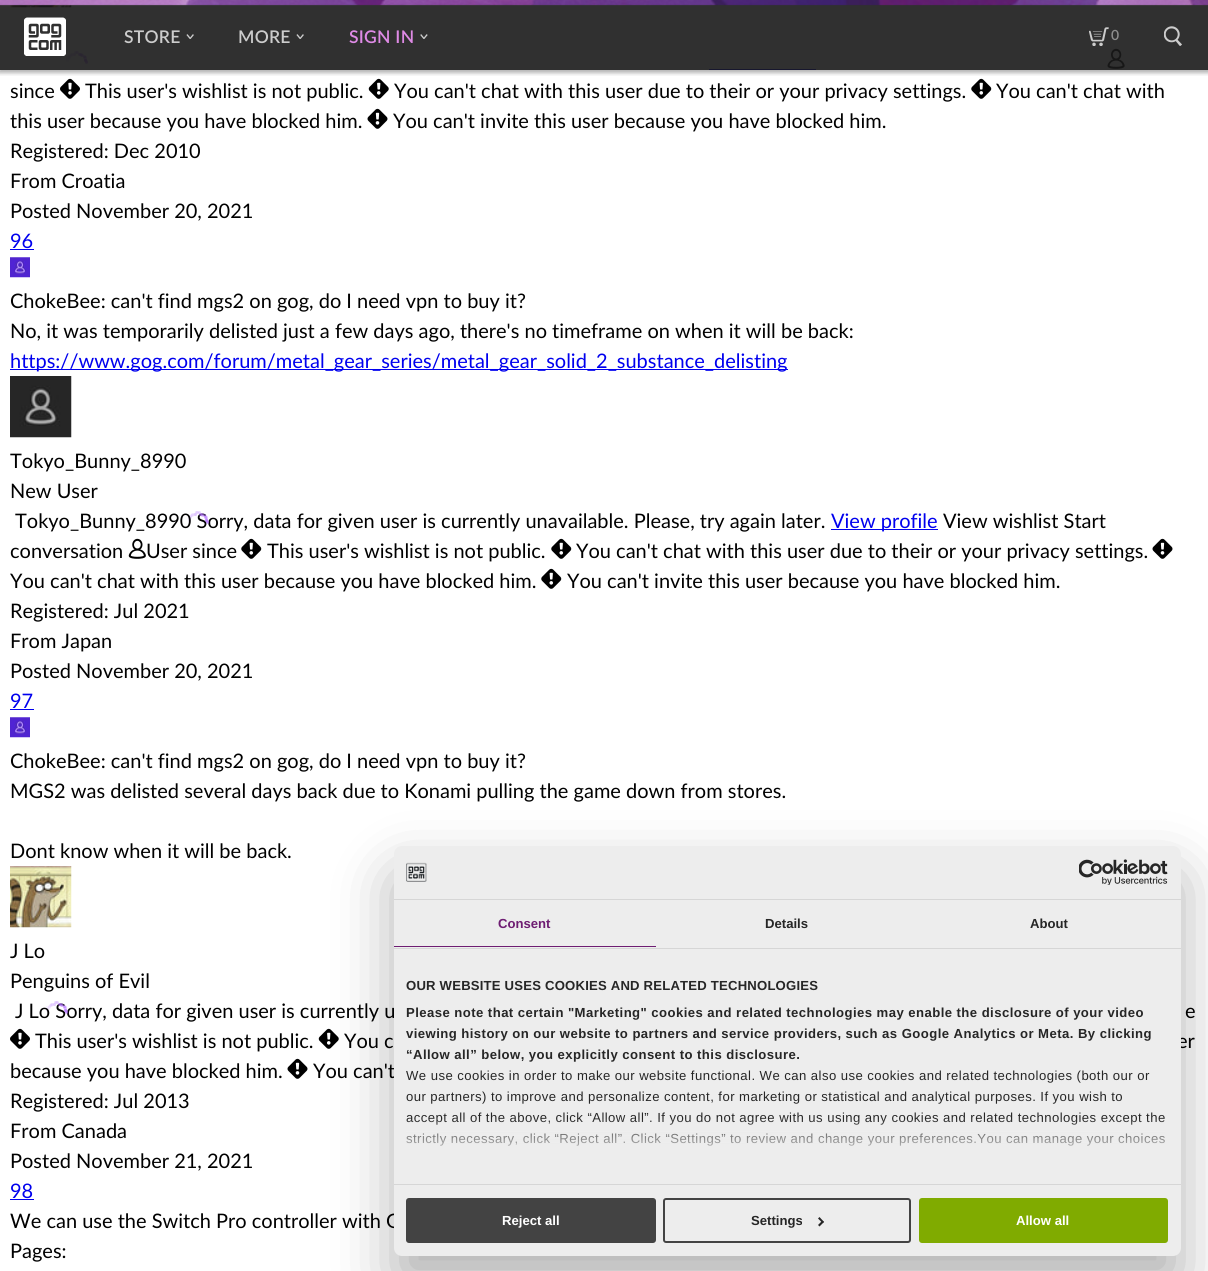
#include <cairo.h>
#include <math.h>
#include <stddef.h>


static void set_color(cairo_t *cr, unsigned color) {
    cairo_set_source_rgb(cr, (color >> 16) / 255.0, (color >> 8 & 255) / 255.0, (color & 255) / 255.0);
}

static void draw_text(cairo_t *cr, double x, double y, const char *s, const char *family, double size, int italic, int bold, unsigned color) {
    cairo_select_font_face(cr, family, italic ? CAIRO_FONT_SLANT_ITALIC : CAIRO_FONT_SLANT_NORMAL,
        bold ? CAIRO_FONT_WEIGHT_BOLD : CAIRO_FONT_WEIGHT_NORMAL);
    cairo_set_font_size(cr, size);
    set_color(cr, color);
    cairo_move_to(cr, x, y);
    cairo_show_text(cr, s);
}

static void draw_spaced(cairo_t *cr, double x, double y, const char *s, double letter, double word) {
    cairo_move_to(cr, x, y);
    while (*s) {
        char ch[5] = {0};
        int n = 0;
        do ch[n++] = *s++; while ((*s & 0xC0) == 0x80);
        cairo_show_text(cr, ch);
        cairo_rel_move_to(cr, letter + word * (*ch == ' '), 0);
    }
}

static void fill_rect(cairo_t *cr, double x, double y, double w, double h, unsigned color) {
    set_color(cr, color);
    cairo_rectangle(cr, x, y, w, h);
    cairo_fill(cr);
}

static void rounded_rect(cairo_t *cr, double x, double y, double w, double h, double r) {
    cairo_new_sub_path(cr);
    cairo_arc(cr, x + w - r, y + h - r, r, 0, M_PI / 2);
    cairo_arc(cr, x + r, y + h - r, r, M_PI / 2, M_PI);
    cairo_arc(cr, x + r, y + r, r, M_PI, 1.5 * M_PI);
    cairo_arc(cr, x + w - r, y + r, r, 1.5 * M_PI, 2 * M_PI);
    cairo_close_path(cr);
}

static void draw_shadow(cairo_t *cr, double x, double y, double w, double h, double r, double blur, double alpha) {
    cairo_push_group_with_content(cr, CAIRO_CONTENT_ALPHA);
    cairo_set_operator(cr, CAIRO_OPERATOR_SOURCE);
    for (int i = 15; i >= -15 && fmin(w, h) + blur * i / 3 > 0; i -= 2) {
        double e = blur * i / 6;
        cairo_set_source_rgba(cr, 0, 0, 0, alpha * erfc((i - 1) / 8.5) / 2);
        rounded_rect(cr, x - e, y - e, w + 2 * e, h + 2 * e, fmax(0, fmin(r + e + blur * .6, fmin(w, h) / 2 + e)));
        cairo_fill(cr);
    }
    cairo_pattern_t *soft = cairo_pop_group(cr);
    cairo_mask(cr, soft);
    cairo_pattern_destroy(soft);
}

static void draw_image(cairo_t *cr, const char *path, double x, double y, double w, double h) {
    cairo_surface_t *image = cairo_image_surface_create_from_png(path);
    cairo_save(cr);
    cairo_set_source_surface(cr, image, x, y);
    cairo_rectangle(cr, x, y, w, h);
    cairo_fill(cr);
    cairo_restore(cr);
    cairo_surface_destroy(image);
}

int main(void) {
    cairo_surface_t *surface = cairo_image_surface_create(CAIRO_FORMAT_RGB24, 1208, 1271);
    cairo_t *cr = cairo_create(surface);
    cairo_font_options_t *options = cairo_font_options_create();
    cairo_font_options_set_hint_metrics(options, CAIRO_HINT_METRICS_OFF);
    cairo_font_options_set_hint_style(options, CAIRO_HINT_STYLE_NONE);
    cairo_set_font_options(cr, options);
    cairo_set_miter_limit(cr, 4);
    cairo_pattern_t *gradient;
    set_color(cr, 0xFFFFFF);
    cairo_paint(cr);
    draw_image(cr, "assets/img7.png", 10, 4, 62, 4);
    cairo_set_source_rgba(cr, 0.702, 0.439, 1, 0.03);
    cairo_rectangle(cr, 66, 59, 3, 3);
    cairo_fill(cr);
    cairo_set_source_rgba(cr, 0.702, 0.439, 1, 0.05);
    cairo_rectangle(cr, 66, 59, 3, 3);
    cairo_fill(cr);
    cairo_set_source_rgba(cr, 0.702, 0.439, 1, 0.07);
    cairo_rectangle(cr, 66, 58, 3, 3);
    cairo_fill(cr);
    cairo_set_source_rgba(cr, 0.702, 0.439, 1, 0.09);
    cairo_rectangle(cr, 66, 56, 3, 3);
    cairo_fill(cr);
    cairo_set_source_rgba(cr, 0.702, 0.439, 1, 0.1);
    cairo_rectangle(cr, 68, 56, 3, 3);
    cairo_fill(cr);
    cairo_set_source_rgba(cr, 0.702, 0.439, 1, 0.12);
    cairo_rectangle(cr, 68, 55, 3, 3);
    cairo_fill(cr);
    cairo_set_source_rgba(cr, 0.851, 0.722, 1, 0.27);
    cairo_arc(cr, 70.5, 55.5, 1.5, 0, 2 * M_PI);
    cairo_fill(cr);
    cairo_set_source_rgba(cr, 0.851, 0.722, 1, 0.3);
    cairo_arc(cr, 71.5, 55.5, 1.5, 0, 2 * M_PI);
    cairo_fill(cr);
    cairo_set_source_rgba(cr, 0.851, 0.722, 1, 0.33);
    cairo_arc(cr, 71.5, 54.5, 1.5, 0, 2 * M_PI);
    cairo_fill(cr);
    cairo_set_source_rgba(cr, 0.851, 0.722, 1, 0.37);
    cairo_arc(cr, 72.5, 54.5, 1.5, 0, 2 * M_PI);
    cairo_fill(cr);
    cairo_set_source_rgba(cr, 0.851, 0.722, 1, 0.4);
    cairo_arc(cr, 74.5, 54.5, 1.5, 0, 2 * M_PI);
    cairo_fill(cr);
    cairo_set_source_rgba(cr, 0.851, 0.722, 1, 0.43);
    cairo_arc(cr, 74.5, 54.5, 1.5, 0, 2 * M_PI);
    cairo_fill(cr);
    cairo_set_source_rgba(cr, 0.851, 0.722, 1, 0.47);
    cairo_arc(cr, 75.5, 52.5, 1.5, 0, 2 * M_PI);
    cairo_fill(cr);
    cairo_set_source_rgba(cr, 0.851, 0.722, 1, 0.5);
    cairo_arc(cr, 76.5, 52.5, 1.5, 0, 2 * M_PI);
    cairo_fill(cr);
    cairo_set_source_rgba(cr, 0.702, 0.439, 1, 0.27);
    cairo_arc(cr, 77.5, 52.5, 1.5, 0, 2 * M_PI);
    cairo_fill(cr);
    cairo_set_source_rgba(cr, 0.702, 0.439, 1, 0.28);
    cairo_arc(cr, 79.5, 54.5, 1.5, 0, 2 * M_PI);
    cairo_fill(cr);
    cairo_set_source_rgba(cr, 0.702, 0.439, 1, 0.3);
    cairo_arc(cr, 79.5, 54.5, 1.5, 0, 2 * M_PI);
    cairo_fill(cr);
    cairo_set_source_rgba(cr, 0.702, 0.439, 1, 0.32);
    cairo_arc(cr, 80.5, 54.5, 1.5, 0, 2 * M_PI);
    cairo_fill(cr);
    cairo_set_source_rgba(cr, 0.702, 0.439, 1, 0.33);
    cairo_arc(cr, 81.5, 54.5, 1.5, 0, 2 * M_PI);
    cairo_fill(cr);
    cairo_set_source_rgba(cr, 0.702, 0.439, 1, 0.35);
    cairo_arc(cr, 81.5, 55.5, 1.5, 0, 2 * M_PI);
    cairo_fill(cr);
    cairo_set_source_rgba(cr, 0.702, 0.439, 1, 0.37);
    cairo_arc(cr, 82.5, 55.5, 1.5, 0, 2 * M_PI);
    cairo_fill(cr);
    cairo_set_source_rgba(cr, 0.702, 0.439, 1, 0.39);
    cairo_arc(cr, 84.5, 56.5, 1.5, 0, 2 * M_PI);
    cairo_fill(cr);
    cairo_set_source_rgba(cr, 0.702, 0.439, 1, 0.4);
    cairo_arc(cr, 84.5, 57.5, 1.5, 0, 2 * M_PI);
    cairo_fill(cr);
    cairo_set_source_rgba(cr, 0.702, 0.439, 1, 0.41);
    cairo_arc(cr, 85.5, 57.5, 1.5, 0, 2 * M_PI);
    cairo_fill(cr);
    cairo_set_source_rgba(cr, 0.851, 0.722, 1, 0.87);
    cairo_arc(cr, 85.5, 59.5, 1.5, 0, 2 * M_PI);
    cairo_fill(cr);
    cairo_set_source_rgba(cr, 0.702, 0.439, 1, 0.45);
    cairo_arc(cr, 85.5, 60.5, 1.5, 0, 2 * M_PI);
    cairo_fill(cr);
    cairo_set_source_rgba(cr, 0.702, 0.439, 1, 0.47);
    cairo_arc(cr, 85.5, 60.5, 1.5, 0, 2 * M_PI);
    cairo_fill(cr);
    cairo_set_source_rgba(cr, 0.702, 0.439, 1, 0.48);
    cairo_arc(cr, 86.5, 61.5, 1.5, 0, 2 * M_PI);
    cairo_fill(cr);
    cairo_set_source_rgba(cr, 0.702, 0.439, 1, 0.5);
    cairo_arc(cr, 86.5, 62.5, 1.5, 0, 2 * M_PI);
    cairo_fill(cr);
    fill_rect(cr, 709, 69, 107, 1, 0x0000EE);
    draw_image(cr, "assets/img8.png", 1107, 48, 18, 21);
    draw_image(cr, "assets/img9.png", 971, 78, 21, 21);
    draw_image(cr, "assets/img10.png", 60, 78, 20, 21);
    draw_image(cr, "assets/img11.png", 368, 78, 21, 21);
    cairo_save(cr);
    cairo_rectangle(cr, 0, 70, 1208, 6);
    cairo_clip(cr);
    set_color(cr, 0x000000);
    draw_shadow(cr, -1, 0, 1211, 73, 0, 2, 0.3);
    cairo_restore(cr);
    cairo_set_source_rgba(cr, 0.102, 0.102, 0.102, 0.9);
    cairo_rectangle(cr, 0, 4, 1208, 66);
    cairo_fill(cr);
    draw_image(cr, "assets/img1.png", 0, 0, 1208, 6);
    draw_image(cr, "assets/img2.png", 24, 17, 42, 39);
    cairo_select_font_face(cr, "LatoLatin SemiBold", CAIRO_FONT_SLANT_NORMAL, CAIRO_FONT_WEIGHT_NORMAL);
    cairo_set_font_size(cr, 17.5);
    set_color(cr, 0xCCCCCC);
    draw_spaced(cr, 124, 43, "STORE", 0.25, 0);
    draw_image(cr, "assets/img3.png", 186, 34, 8, 5);
    draw_spaced(cr, 238, 43, "MORE", 0.25, 0);
    draw_image(cr, "assets/img3.png", 296, 34, 8, 5);
    set_color(cr, 0xDE8AE5);
    draw_spaced(cr, 349, 43, "SIGN IN", 0.25, 0);
    draw_image(cr, "assets/img4.png", 420, 34, 8, 5);
    draw_image(cr, "assets/img5.png", 1089, 27, 20, 19);
    cairo_set_font_size(cr, 14);
    set_color(cr, 0x8E8E8E);
    draw_spaced(cr, 1111, 40, "0", 0.25, 0);
    draw_image(cr, "assets/img6.png", 1164, 26, 18, 20);
    draw_text(cr, 10, 98, "since", "LatoLatin", 20, 0, 0, 0x000000);
    draw_text(cr, 996, 98, "You can't chat with", "LatoLatin", 20, 0, 0, 0x000000);
    draw_text(cr, 10, 128, "this user because you have blocked him.", "LatoLatin", 20, 0, 0, 0x000000);
    draw_text(cr, 85, 98, "This user's wishlist is not public.", "LatoLatin", 20, 0, 0, 0x000000);
    draw_text(cr, 394, 98, "You can't chat with this user due to their or your privacy settings.", "LatoLatin", 20, 0, 0, 0x000000);
    draw_image(cr, "assets/img12.png", 367, 108, 21, 21);
    draw_text(cr, 393, 128, "You can't invite this user because you have blocked him.", "LatoLatin", 20, 0, 0, 0x000000);
    draw_text(cr, 10, 158, "Registered: Dec 2010", "LatoLatin", 20, 0, 0, 0x000000);
    draw_text(cr, 10, 188, "From Croatia", "LatoLatin", 20, 0, 0, 0x000000);
    draw_text(cr, 10, 218, "Posted November 20, 2021", "LatoLatin", 20, 0, 0, 0x000000);
    draw_text(cr, 10, 248, "96", "LatoLatin", 20, 0, 0, 0x0000EE);
    fill_rect(cr, 10, 249, 24, 1, 0x0000EE);
    draw_image(cr, "assets/img13.png", 10, 257, 20, 21);
    draw_text(cr, 10, 308, "ChokeBee: can't find mgs2 on gog, do I need vpn to buy it?", "LatoLatin", 20, 0, 0, 0x000000);
    draw_text(cr, 10, 338, "No, it was temporarily delisted just a few days ago, there's no timeframe on when it will be back:", "LatoLatin", 20, 0, 0, 0x000000);
    fill_rect(cr, 10, 369, 778, 1, 0x0000EE);
    draw_text(cr, 10, 368, "https://www.gog.com/forum/metal_gear_series/metal_gear_solid_2_substance_delisting", "LatoLatin", 20, 0, 0, 0x0000EE);
    draw_image(cr, "assets/img14.png", 10, 376, 62, 62);
    draw_text(cr, 10, 468, "Tokyo_Bunny_8990", "LatoLatin", 20, 0, 0, 0x000000);
    draw_text(cr, 10, 498, "New User", "LatoLatin", 20, 0, 0, 0x000000);
    cairo_set_source_rgba(cr, 0.702, 0.439, 1, 0.03);
    cairo_rectangle(cr, 188, 519, 3, 3);
    cairo_fill(cr);
    cairo_set_source_rgba(cr, 0.702, 0.439, 1, 0.05);
    cairo_rectangle(cr, 188, 519, 3, 3);
    cairo_fill(cr);
    cairo_set_source_rgba(cr, 0.702, 0.439, 1, 0.07);
    cairo_rectangle(cr, 188, 518, 3, 3);
    cairo_fill(cr);
    cairo_set_source_rgba(cr, 0.702, 0.439, 1, 0.09);
    cairo_rectangle(cr, 188, 516, 3, 3);
    cairo_fill(cr);
    cairo_set_source_rgba(cr, 0.702, 0.439, 1, 0.1);
    cairo_rectangle(cr, 189, 516, 3, 3);
    cairo_fill(cr);
    cairo_set_source_rgba(cr, 0.702, 0.439, 1, 0.12);
    cairo_rectangle(cr, 189, 515, 3, 3);
    cairo_fill(cr);
    cairo_set_source_rgba(cr, 0.702, 0.439, 1, 0.13);
    cairo_arc(cr, 191.5, 515.5, 1.5, 0, 2 * M_PI);
    cairo_fill(cr);
    draw_text(cr, 15, 528, "Tokyo_Bunny_8990 Sorry, data for given user is currently unavailable. Please, try again later.", "LatoLatin", 20, 0, 0, 0x000000);
    cairo_set_source_rgba(cr, 0.851, 0.722, 1, 0.3);
    cairo_new_path(cr);
    cairo_arc(cr, 192.5, 515.5, 1.5, 0, 2 * M_PI);
    cairo_fill(cr);
    cairo_set_source_rgba(cr, 0.851, 0.722, 1, 0.33);
    cairo_arc(cr, 192.5, 514.5, 1.5, 0, 2 * M_PI);
    cairo_fill(cr);
    cairo_set_source_rgba(cr, 0.851, 0.722, 1, 0.37);
    cairo_arc(cr, 194.5, 514.5, 1.5, 0, 2 * M_PI);
    cairo_fill(cr);
    cairo_set_source_rgba(cr, 0.851, 0.722, 1, 0.4);
    cairo_arc(cr, 195.5, 514.5, 1.5, 0, 2 * M_PI);
    cairo_fill(cr);
    cairo_set_source_rgba(cr, 0.851, 0.722, 1, 0.43);
    cairo_arc(cr, 195.5, 514.5, 1.5, 0, 2 * M_PI);
    cairo_fill(cr);
    cairo_set_source_rgba(cr, 0.851, 0.722, 1, 0.47);
    cairo_arc(cr, 196.5, 512.5, 1.5, 0, 2 * M_PI);
    cairo_fill(cr);
    cairo_set_source_rgba(cr, 0.851, 0.722, 1, 0.5);
    cairo_arc(cr, 197.5, 512.5, 1.5, 0, 2 * M_PI);
    cairo_fill(cr);
    cairo_set_source_rgba(cr, 0.702, 0.439, 1, 0.27);
    cairo_arc(cr, 199.5, 512.5, 1.5, 0, 2 * M_PI);
    cairo_fill(cr);
    cairo_set_source_rgba(cr, 0.702, 0.439, 1, 0.28);
    cairo_arc(cr, 200.5, 514.5, 1.5, 0, 2 * M_PI);
    cairo_fill(cr);
    cairo_set_source_rgba(cr, 0.702, 0.439, 1, 0.3);
    cairo_arc(cr, 200.5, 514.5, 1.5, 0, 2 * M_PI);
    cairo_fill(cr);
    cairo_set_source_rgba(cr, 0.702, 0.439, 1, 0.32);
    cairo_arc(cr, 201.5, 514.5, 1.5, 0, 2 * M_PI);
    cairo_fill(cr);
    cairo_set_source_rgba(cr, 0.702, 0.439, 1, 0.33);
    cairo_arc(cr, 202.5, 514.5, 1.5, 0, 2 * M_PI);
    cairo_fill(cr);
    cairo_set_source_rgba(cr, 0.702, 0.439, 1, 0.35);
    cairo_arc(cr, 202.5, 515.5, 1.5, 0, 2 * M_PI);
    cairo_fill(cr);
    cairo_set_source_rgba(cr, 0.702, 0.439, 1, 0.37);
    cairo_arc(cr, 204.5, 515.5, 1.5, 0, 2 * M_PI);
    cairo_fill(cr);
    cairo_set_source_rgba(cr, 0.702, 0.439, 1, 0.39);
    cairo_arc(cr, 205.5, 516.5, 1.5, 0, 2 * M_PI);
    cairo_fill(cr);
    cairo_set_source_rgba(cr, 0.702, 0.439, 1, 0.4);
    cairo_arc(cr, 205.5, 517.5, 1.5, 0, 2 * M_PI);
    cairo_fill(cr);
    cairo_set_source_rgba(cr, 0.702, 0.439, 1, 0.41);
    cairo_arc(cr, 206.5, 517.5, 1.5, 0, 2 * M_PI);
    cairo_fill(cr);
    cairo_set_source_rgba(cr, 0.702, 0.439, 1, 0.43);
    cairo_arc(cr, 206.5, 519.5, 1.5, 0, 2 * M_PI);
    cairo_fill(cr);
    cairo_set_source_rgba(cr, 0.702, 0.439, 1, 0.45);
    cairo_arc(cr, 206.5, 520.5, 1.5, 0, 2 * M_PI);
    cairo_fill(cr);
    cairo_set_source_rgba(cr, 0.702, 0.439, 1, 0.47);
    cairo_arc(cr, 206.5, 520.5, 1.5, 0, 2 * M_PI);
    cairo_fill(cr);
    cairo_set_source_rgba(cr, 0.702, 0.439, 1, 0.48);
    cairo_arc(cr, 207.5, 521.5, 1.5, 0, 2 * M_PI);
    cairo_fill(cr);
    cairo_set_source_rgba(cr, 0.702, 0.439, 1, 0.5);
    cairo_arc(cr, 207.5, 522.5, 1.5, 0, 2 * M_PI);
    cairo_fill(cr);
    fill_rect(cr, 831, 529, 107, 1, 0x0000EE);
    draw_text(cr, 831, 528, "View profile", "LatoLatin", 20, 0, 0, 0x0000EE);
    draw_text(cr, 943, 528, "View wishlist Start", "LatoLatin", 20, 0, 0, 0x000000);
    draw_text(cr, 10, 558, "conversation", "LatoLatin", 20, 0, 0, 0x000000);
    draw_image(cr, "assets/img15.png", 128, 538, 18, 21);
    draw_text(cr, 146, 558, "User since", "LatoLatin", 20, 0, 0, 0x000000);
    draw_image(cr, "assets/img9.png", 241, 538, 21, 21);
    draw_text(cr, 267, 558, "This user's wishlist is not public.", "LatoLatin", 20, 0, 0, 0x000000);
    draw_image(cr, "assets/img9.png", 551, 538, 21, 21);
    draw_text(cr, 576, 558, "You can't chat with this user due to their or your privacy settings.", "LatoLatin", 20, 0, 0, 0x000000);
    draw_image(cr, "assets/img12.png", 1152, 538, 21, 21);
    draw_text(cr, 10, 588, "You can't chat with this user because you have blocked him.", "LatoLatin", 20, 0, 0, 0x000000);
    draw_image(cr, "assets/img9.png", 541, 568, 21, 21);
    draw_text(cr, 567, 588, "You can't invite this user because you have blocked him.", "LatoLatin", 20, 0, 0, 0x000000);
    draw_text(cr, 10, 618, "Registered: Jul 2021", "LatoLatin", 20, 0, 0, 0x000000);
    draw_text(cr, 10, 648, "From Japan", "LatoLatin", 20, 0, 0, 0x000000);
    draw_text(cr, 10, 678, "Posted November 20, 2021", "LatoLatin", 20, 0, 0, 0x000000);
    draw_text(cr, 10, 708, "97", "LatoLatin", 20, 0, 0, 0x0000EE);
    fill_rect(cr, 10, 709, 24, 1, 0x0000EE);
    draw_image(cr, "assets/img13.png", 10, 717, 20, 21);
    draw_text(cr, 10, 768, "ChokeBee: can't find mgs2 on gog, do I need vpn to buy it?", "LatoLatin", 20, 0, 0, 0x000000);
    draw_text(cr, 10, 798, "MGS2 was delisted several days back due to Konami pulling the game down from stores.", "LatoLatin", 20, 0, 0, 0x000000);
    draw_text(cr, 10, 858, "Dont know when it will be back.", "LatoLatin", 20, 0, 0, 0x000000);
    draw_image(cr, "assets/img16.png", 10, 866, 62, 62);
    draw_text(cr, 10, 958, "J Lo", "LatoLatin", 20, 0, 0, 0x000000);
    draw_text(cr, 10, 988, "Penguins of Evil", "LatoLatin", 20, 0, 0, 0x000000);
    cairo_set_source_rgba(cr, 0.702, 0.439, 1, 0.03);
    cairo_rectangle(cr, 46, 1009, 3, 3);
    cairo_fill(cr);
    cairo_set_source_rgba(cr, 0.702, 0.439, 1, 0.05);
    cairo_rectangle(cr, 46, 1009, 3, 3);
    cairo_fill(cr);
    cairo_set_source_rgba(cr, 0.702, 0.439, 1, 0.07);
    cairo_rectangle(cr, 46, 1008, 3, 3);
    cairo_fill(cr);
    cairo_set_source_rgba(cr, 0.702, 0.439, 1, 0.09);
    cairo_rectangle(cr, 46, 1006, 3, 3);
    cairo_fill(cr);
    draw_text(cr, 15, 1018, "J Lo Sorry, data for given user is currently u", "LatoLatin", 20, 0, 0, 0x000000);
    cairo_set_source_rgba(cr, 0.851, 0.722, 1, 0.2);
    cairo_new_path(cr);
    cairo_arc(cr, 49.5, 1007.5, 1.5, 0, 2 * M_PI);
    cairo_fill(cr);
    cairo_set_source_rgba(cr, 0.851, 0.722, 1, 0.23);
    cairo_arc(cr, 49.5, 1006.5, 1.5, 0, 2 * M_PI);
    cairo_fill(cr);
    cairo_set_source_rgba(cr, 0.851, 0.722, 1, 0.27);
    cairo_arc(cr, 50.5, 1005.5, 1.5, 0, 2 * M_PI);
    cairo_fill(cr);
    cairo_set_source_rgba(cr, 0.851, 0.722, 1, 0.3);
    cairo_arc(cr, 51.5, 1005.5, 1.5, 0, 2 * M_PI);
    cairo_fill(cr);
    cairo_set_source_rgba(cr, 0.851, 0.722, 1, 0.33);
    cairo_arc(cr, 51.5, 1004.5, 1.5, 0, 2 * M_PI);
    cairo_fill(cr);
    cairo_set_source_rgba(cr, 0.851, 0.722, 1, 0.37);
    cairo_arc(cr, 52.5, 1004.5, 1.5, 0, 2 * M_PI);
    cairo_fill(cr);
    cairo_set_source_rgba(cr, 0.851, 0.722, 1, 0.4);
    cairo_arc(cr, 54.5, 1004.5, 1.5, 0, 2 * M_PI);
    cairo_fill(cr);
    cairo_set_source_rgba(cr, 0.851, 0.722, 1, 0.43);
    cairo_arc(cr, 54.5, 1004.5, 1.5, 0, 2 * M_PI);
    cairo_fill(cr);
    cairo_set_source_rgba(cr, 0.851, 0.722, 1, 0.47);
    cairo_arc(cr, 55.5, 1002.5, 1.5, 0, 2 * M_PI);
    cairo_fill(cr);
    cairo_set_source_rgba(cr, 0.851, 0.722, 1, 0.5);
    cairo_arc(cr, 56.5, 1002.5, 1.5, 0, 2 * M_PI);
    cairo_fill(cr);
    cairo_set_source_rgba(cr, 0.851, 0.722, 1, 0.53);
    cairo_arc(cr, 57.5, 1002.5, 1.5, 0, 2 * M_PI);
    cairo_fill(cr);
    cairo_set_source_rgba(cr, 0.702, 0.439, 1, 0.28);
    cairo_arc(cr, 59.5, 1004.5, 1.5, 0, 2 * M_PI);
    cairo_fill(cr);
    cairo_set_source_rgba(cr, 0.702, 0.439, 1, 0.3);
    cairo_arc(cr, 59.5, 1004.5, 1.5, 0, 2 * M_PI);
    cairo_fill(cr);
    cairo_set_source_rgba(cr, 0.702, 0.439, 1, 0.32);
    cairo_arc(cr, 60.5, 1004.5, 1.5, 0, 2 * M_PI);
    cairo_fill(cr);
    cairo_set_source_rgba(cr, 0.702, 0.439, 1, 0.33);
    cairo_arc(cr, 61.5, 1004.5, 1.5, 0, 2 * M_PI);
    cairo_fill(cr);
    cairo_set_source_rgba(cr, 0.702, 0.439, 1, 0.35);
    cairo_arc(cr, 61.5, 1005.5, 1.5, 0, 2 * M_PI);
    cairo_fill(cr);
    cairo_set_source_rgba(cr, 0.702, 0.439, 1, 0.37);
    cairo_arc(cr, 62.5, 1005.5, 1.5, 0, 2 * M_PI);
    cairo_fill(cr);
    cairo_set_source_rgba(cr, 0.702, 0.439, 1, 0.39);
    cairo_arc(cr, 64.5, 1006.5, 1.5, 0, 2 * M_PI);
    cairo_fill(cr);
    cairo_set_source_rgba(cr, 0.702, 0.439, 1, 0.4);
    cairo_arc(cr, 64.5, 1007.5, 1.5, 0, 2 * M_PI);
    cairo_fill(cr);
    cairo_set_source_rgba(cr, 0.702, 0.439, 1, 0.41);
    cairo_arc(cr, 65.5, 1007.5, 1.5, 0, 2 * M_PI);
    cairo_fill(cr);
    cairo_set_source_rgba(cr, 0.851, 0.718, 1, 0.87);
    cairo_arc(cr, 65.5, 1009.5, 1.5, 0, 2 * M_PI);
    cairo_fill(cr);
    cairo_set_source_rgba(cr, 0.702, 0.439, 1, 0.45);
    cairo_arc(cr, 65.5, 1010.5, 1.5, 0, 2 * M_PI);
    cairo_fill(cr);
    cairo_set_source_rgba(cr, 0.702, 0.439, 1, 0.47);
    cairo_arc(cr, 65.5, 1010.5, 1.5, 0, 2 * M_PI);
    cairo_fill(cr);
    cairo_set_source_rgba(cr, 0.702, 0.439, 1, 0.48);
    cairo_arc(cr, 66.5, 1011.5, 1.5, 0, 2 * M_PI);
    cairo_fill(cr);
    cairo_set_source_rgba(cr, 0.702, 0.439, 1, 0.5);
    cairo_arc(cr, 66.5, 1012.5, 1.5, 0, 2 * M_PI);
    cairo_fill(cr);
    draw_text(cr, 1185, 1018, "e", "LatoLatin", 20, 0, 0, 0x000000);
    draw_image(cr, "assets/img10.png", 10, 1028, 20, 21);
    draw_text(cr, 35, 1048, "This user's wishlist is not public.", "LatoLatin", 20, 0, 0, 0x000000);
    draw_image(cr, "assets/img11.png", 318, 1028, 21, 21);
    draw_text(cr, 344, 1048, "You c", "LatoLatin", 20, 0, 0, 0x000000);
    draw_text(cr, 1177, 1048, "er", "LatoLatin", 20, 0, 0, 0x000000);
    draw_text(cr, 10, 1078, "because you have blocked him.", "LatoLatin", 20, 0, 0, 0x000000);
    draw_image(cr, "assets/img12.png", 287, 1058, 21, 21);
    draw_text(cr, 313, 1078, "You can't", "LatoLatin", 20, 0, 0, 0x000000);
    draw_text(cr, 10, 1108, "Registered: Jul 2013", "LatoLatin", 20, 0, 0, 0x000000);
    draw_text(cr, 10, 1138, "From Canada", "LatoLatin", 20, 0, 0, 0x000000);
    draw_text(cr, 10, 1168, "Posted November 21, 2021", "LatoLatin", 20, 0, 0, 0x000000);
    draw_text(cr, 10, 1198, "98", "LatoLatin", 20, 0, 0, 0x0000EE);
    fill_rect(cr, 10, 1199, 24, 1, 0x0000EE);
    draw_text(cr, 10, 1228, "We can use the Switch Pro controller with G", "LatoLatin", 20, 0, 0, 0x000000);
    draw_text(cr, 10, 1258, "Pages:", "LatoLatin", 20, 0, 0, 0x000000);
    set_color(cr, 0x000000);
    draw_shadow(cr, 394, 874, 787, 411, 8, 29.5, 0.3);
    set_color(cr, 0xEDEDED);
    rounded_rect(cr, 394, 846, 787, 410, 8);
    cairo_fill(cr);
    fill_rect(cr, 394, 899, 787, 1, 0xD6D6D6);
    draw_image(cr, "assets/img17.png", 406, 862, 21, 20);
    draw_image(cr, "assets/img18.png", 1079, 859, 89, 26);
    fill_rect(cr, 394, 948, 787, 1, 0xD6D6D6);
    fill_rect(cr, 394, 946, 262, 1, 0x6E1D72);
    draw_text(cr, 498, 928, "Consent", "Liberation Sans", 13.12, 0, 1, 0x6E1D72);
    draw_text(cr, 765, 928, "Details", "Liberation Sans", 13.12, 0, 1, 0x262626);
    draw_text(cr, 1030, 928, "About", "Liberation Sans", 13.12, 0, 1, 0x262626);
    fill_rect(cr, 394, 1184, 787, 1, 0xD6D6D6);
    set_color(cr, 0x262626);
    draw_spaced(cr, 406, 990, "OUR WEBSITE USES COOKIES AND RELATED TECHNOLOGIES", 0.2, 0);
    draw_spaced(cr, 406, 1017, "Please note that certain \"Marketing\" cookies and related technologies may enable the disclosure of your video", 0.44, 0);
    draw_spaced(cr, 406, 1038, "viewing history on our website to partners and service providers, such as Google Analytics or Meta. By clicking", 0.44, 0);
    draw_spaced(cr, 406, 1059, "“Allow all” below, you explicitly consent to this disclosure.", 0.44, 0);
    cairo_select_font_face(cr, "Liberation Sans", CAIRO_FONT_SLANT_NORMAL, CAIRO_FONT_WEIGHT_NORMAL);
    draw_spaced(cr, 406, 1080, "We use cookies in order to make our website functional. We can also use cookies and related technologies (both our or", 0.44, 0);
    draw_spaced(cr, 406, 1101, "our partners) to improve and personalize content, for marketing or statistical and analytical purposes. If you wish to", 0.44, 0);
    draw_spaced(cr, 406, 1122, "accept all of the above, click “Allow all”. If you do not agree with us using any cookies and related technologies except the", 0.44, 0);
    draw_spaced(cr, 406, 1143, "strictly necessary, click “Reject all”. Click “Settings” to review and change your preferences.You can manage your choices", 0.44, 0);
    gradient = cairo_pattern_create_linear(781, 1184, 781, 1118);
    cairo_pattern_add_color_stop_rgba(gradient, 0, 0.929, 0.929, 0.929, 1);
    cairo_pattern_add_color_stop_rgba(gradient, 0.5, 0.929, 0.929, 0.929, 0.8);
    cairo_pattern_add_color_stop_rgba(gradient, 1, 0.929, 0.929, 0.929, 0);
    cairo_set_source(cr, gradient);
    cairo_pattern_destroy(gradient);
    cairo_rectangle(cr, 406, 1119, 759, 27);
    cairo_fill(cr);
    set_color(cr, 0x434343);
    rounded_rect(cr, 407, 1199, 248, 43, 2);
    cairo_fill_preserve(cr);
    cairo_stroke(cr);
    draw_text(cr, 502, 1225, "Reject all", "Liberation Sans", 13.12, 0, 1, 0xFFFFFF);
    rounded_rect(cr, 664, 1199, 246, 43, 2);
    set_color(cr, 0x434343);
    cairo_stroke(cr);
    draw_text(cr, 751, 1225, "Settings", "Liberation Sans", 13.12, 0, 1, 0x262626);
    cairo_new_path(cr);
    cairo_move_to(cr, 819.5, 1217);
    cairo_line_to(cr, 824, 1222);
    cairo_line_to(cr, 822.5, 1223);
    cairo_line_to(cr, 818, 1218.5);
    cairo_close_path(cr);
    cairo_fill(cr);
    cairo_new_path(cr);
    cairo_move_to(cr, 822.5, 1220.5);
    cairo_line_to(cr, 824, 1222);
    cairo_line_to(cr, 819.5, 1226.5);
    cairo_line_to(cr, 818, 1225);
    cairo_close_path(cr);
    cairo_fill(cr);
    set_color(cr, 0x80AB00);
    rounded_rect(cr, 920, 1199, 247, 43, 2);
    cairo_fill_preserve(cr);
    cairo_stroke(cr);
    draw_text(cr, 1016, 1225, "Allow all", "Liberation Sans", 13.12, 0, 1, 0xFFFFFF);
    cairo_surface_write_to_png(surface, "output.png");
    cairo_font_options_destroy(options);
    cairo_destroy(cr);
    cairo_surface_destroy(surface);
    return 0;
}
